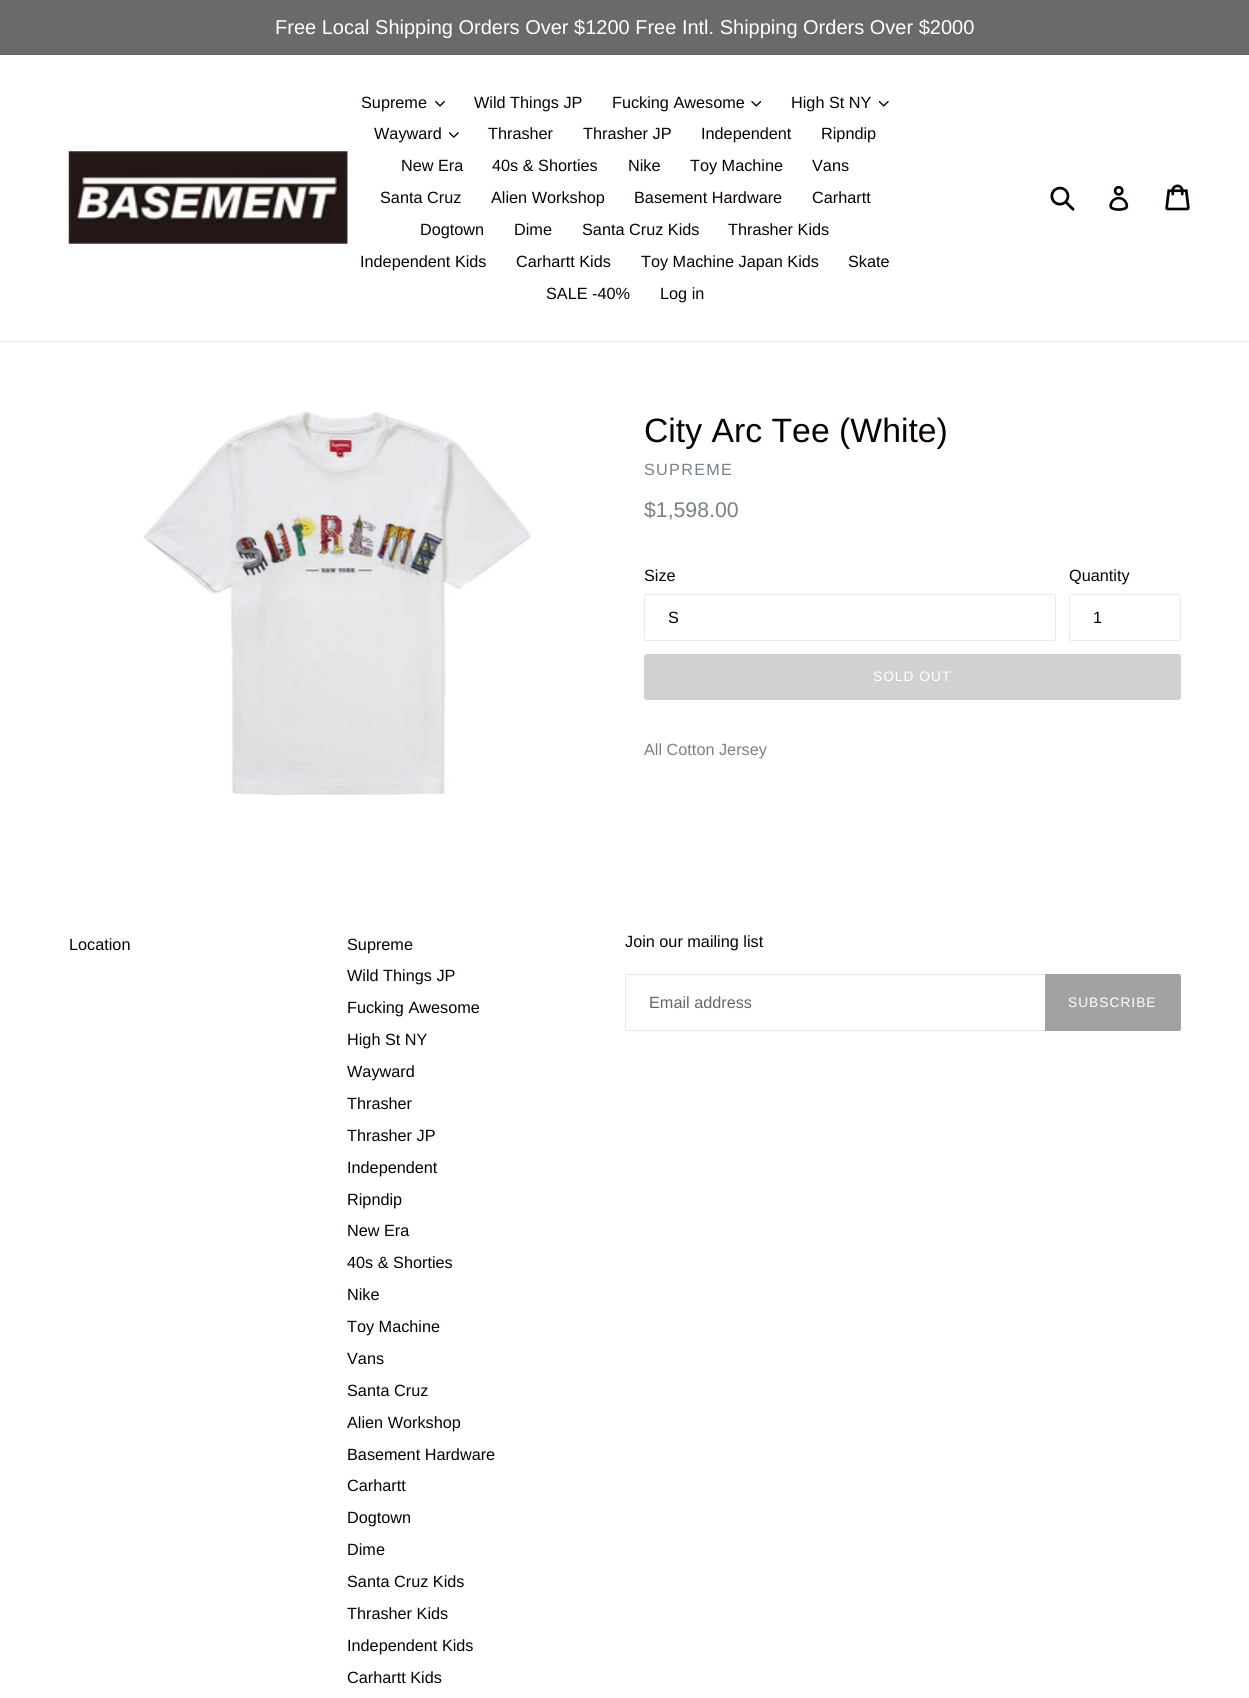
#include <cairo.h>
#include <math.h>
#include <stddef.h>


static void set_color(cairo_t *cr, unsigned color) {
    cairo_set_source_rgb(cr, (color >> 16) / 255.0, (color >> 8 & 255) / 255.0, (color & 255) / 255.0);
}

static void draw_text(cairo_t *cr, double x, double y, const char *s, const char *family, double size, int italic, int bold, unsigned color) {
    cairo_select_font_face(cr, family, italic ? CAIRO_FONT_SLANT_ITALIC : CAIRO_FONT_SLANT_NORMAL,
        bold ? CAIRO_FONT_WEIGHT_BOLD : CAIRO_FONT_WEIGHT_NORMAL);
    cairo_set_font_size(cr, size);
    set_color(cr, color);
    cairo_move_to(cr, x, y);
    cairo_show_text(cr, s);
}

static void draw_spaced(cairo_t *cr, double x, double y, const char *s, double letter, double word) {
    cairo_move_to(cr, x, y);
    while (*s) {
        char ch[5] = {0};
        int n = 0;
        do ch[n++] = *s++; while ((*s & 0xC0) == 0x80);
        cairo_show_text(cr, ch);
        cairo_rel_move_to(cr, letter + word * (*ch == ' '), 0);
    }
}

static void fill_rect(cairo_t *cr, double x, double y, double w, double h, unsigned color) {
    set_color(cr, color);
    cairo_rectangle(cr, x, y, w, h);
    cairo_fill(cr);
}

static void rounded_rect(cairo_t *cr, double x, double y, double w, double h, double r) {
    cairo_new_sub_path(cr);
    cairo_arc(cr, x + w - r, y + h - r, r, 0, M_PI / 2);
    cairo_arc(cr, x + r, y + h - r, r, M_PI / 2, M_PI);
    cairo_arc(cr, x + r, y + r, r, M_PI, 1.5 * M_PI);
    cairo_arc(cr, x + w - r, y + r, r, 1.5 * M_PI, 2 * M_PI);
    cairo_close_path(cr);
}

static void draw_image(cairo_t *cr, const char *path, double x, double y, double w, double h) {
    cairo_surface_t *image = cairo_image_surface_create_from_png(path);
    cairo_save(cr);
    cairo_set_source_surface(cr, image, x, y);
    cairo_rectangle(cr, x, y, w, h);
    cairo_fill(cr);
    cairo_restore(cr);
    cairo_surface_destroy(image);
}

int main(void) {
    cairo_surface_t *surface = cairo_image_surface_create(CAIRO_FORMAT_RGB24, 1249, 1698);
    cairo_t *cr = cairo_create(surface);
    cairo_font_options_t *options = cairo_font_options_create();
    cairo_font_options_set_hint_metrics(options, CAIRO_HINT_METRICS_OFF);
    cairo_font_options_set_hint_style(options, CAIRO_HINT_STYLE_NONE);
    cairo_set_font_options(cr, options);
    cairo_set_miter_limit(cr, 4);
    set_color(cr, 0xFFFFFF);
    cairo_paint(cr);
    fill_rect(cr, 0, 0, 1249, 55, 0x6A6A6A);
    draw_text(cr, 275, 34, "Free Local Shipping Orders Over $1200 Free Intl. Shipping Orders Over $2000", "Liberation Sans", 20, 0, 0, 0xFFFFFF);
    fill_rect(cr, 0, 341, 1249, 1, 0xE8E9EB);
    draw_image(cr, "assets/img1.png", 68, 151, 280, 93);
    draw_text(cr, 361, 108, "Supreme", "Liberation Sans", 16.25, 0, 0, 0x0A0101);
    draw_image(cr, "assets/img2.png", 435, 100, 10, 7);
    draw_text(cr, 474, 108, "Wild Things JP", "Liberation Sans", 16.25, 0, 0, 0x0A0101);
    draw_text(cr, 612, 108, "Fucking Awesome", "Liberation Sans", 16.25, 0, 0, 0x0A0101);
    draw_image(cr, "assets/img3.png", 751, 100, 10, 7);
    draw_text(cr, 791, 108, "High St NY", "Liberation Sans", 16.25, 0, 0, 0x0A0101);
    draw_image(cr, "assets/img4.png", 879, 100, 10, 7);
    draw_text(cr, 374, 139, "Wayward", "Liberation Sans", 16.25, 0, 0, 0x0A0101);
    draw_image(cr, "assets/img5.png", 449, 132, 10, 6);
    draw_text(cr, 488, 139, "Thrasher", "Liberation Sans", 16.25, 0, 0, 0x0A0101);
    draw_text(cr, 583, 139, "Thrasher JP", "Liberation Sans", 16.25, 0, 0, 0x0A0101);
    draw_text(cr, 701, 139, "Independent", "Liberation Sans", 16.25, 0, 0, 0x0A0101);
    draw_text(cr, 821, 139, "Ripndip", "Liberation Sans", 16.25, 0, 0, 0x0A0101);
    draw_text(cr, 401, 171, "New Era", "Liberation Sans", 16.25, 0, 0, 0x0A0101);
    draw_text(cr, 492, 171, "40s & Shorties", "Liberation Sans", 16.25, 0, 0, 0x0A0101);
    draw_text(cr, 628, 171, "Nike", "Liberation Sans", 16.25, 0, 0, 0x0A0101);
    draw_text(cr, 690, 171, "Toy Machine", "Liberation Sans", 16.25, 0, 0, 0x0A0101);
    draw_text(cr, 812, 171, "Vans", "Liberation Sans", 16.25, 0, 0, 0x0A0101);
    draw_text(cr, 380, 203, "Santa Cruz", "Liberation Sans", 16.25, 0, 0, 0x0A0101);
    draw_text(cr, 491, 203, "Alien Workshop", "Liberation Sans", 16.25, 0, 0, 0x0A0101);
    draw_text(cr, 634, 203, "Basement Hardware", "Liberation Sans", 16.25, 0, 0, 0x0A0101);
    draw_text(cr, 812, 203, "Carhartt", "Liberation Sans", 16.25, 0, 0, 0x0A0101);
    draw_text(cr, 420, 235, "Dogtown", "Liberation Sans", 16.25, 0, 0, 0x0A0101);
    draw_text(cr, 514, 235, "Dime", "Liberation Sans", 16.25, 0, 0, 0x0A0101);
    draw_text(cr, 582, 235, "Santa Cruz Kids", "Liberation Sans", 16.25, 0, 0, 0x0A0101);
    draw_text(cr, 728, 235, "Thrasher Kids", "Liberation Sans", 16.25, 0, 0, 0x0A0101);
    draw_text(cr, 360, 267, "Independent Kids", "Liberation Sans", 16.25, 0, 0, 0x0A0101);
    draw_text(cr, 516, 267, "Carhartt Kids", "Liberation Sans", 16.25, 0, 0, 0x0A0101);
    draw_text(cr, 641, 267, "Toy Machine Japan Kids", "Liberation Sans", 16.25, 0, 0, 0x0A0101);
    draw_text(cr, 848, 267, "Skate", "Liberation Sans", 16.25, 0, 0, 0x0A0101);
    draw_text(cr, 546, 299, "SALE -40%", "Liberation Sans", 16.25, 0, 0, 0x0A0101);
    draw_text(cr, 660, 299, "Log in", "Liberation Sans", 16.25, 0, 0, 0x0A0101);
    draw_image(cr, "assets/img6.png", 1050, 186, 25, 25);
    draw_image(cr, "assets/img7.png", 1109, 186, 20, 25);
    draw_image(cr, "assets/img8.png", 1165, 184, 25, 27);
    draw_image(cr, "assets/img9.png", 143, 411, 388, 384);
    draw_text(cr, 644, 442, "City Arc Tee (White)", "Liberation Sans", 33.75, 0, 0, 0x0A0101);
    cairo_set_font_size(cr, 16.25);
    set_color(cr, 0x788188);
    draw_spaced(cr, 644, 475, "SUPREME", 1.25, 0);
    draw_text(cr, 644, 517, "$1,598.00", "Liberation Sans", 21.25, 0, 0, 0x788188);
    draw_text(cr, 644, 581, "Size", "Liberation Sans", 16.25, 0, 0, 0x0A0101);
    rounded_rect(cr, 644.5, 594.5, 411, 46, 2);
    set_color(cr, 0xE8E9EB);
    cairo_set_line_width(cr, 1);
    cairo_stroke(cr);
    draw_text(cr, 668, 623, "S", "Liberation Sans", 16.25, 0, 0, 0x000000);
    draw_text(cr, 1069, 581, "Quantity", "Liberation Sans", 16.25, 0, 0, 0x0A0101);
    rounded_rect(cr, 1069.5, 594.5, 111, 46, 2);
    set_color(cr, 0xE8E9EB);
    cairo_stroke(cr);
    draw_text(cr, 1093, 623, "1", "Liberation Sans", 16.25, 0, 0, 0x000000);
    set_color(cr, 0xD1D1D1);
    rounded_rect(cr, 644, 654, 537, 46, 2.5);
    cairo_fill(cr);
    cairo_set_font_size(cr, 13.75);
    set_color(cr, 0xFFFFFF);
    draw_spaced(cr, 873, 681, "SOLD OUT", 1, 0);
    draw_text(cr, 644, 755, "All Cotton Jersey", "Liberation Sans", 16.25, 0, 0, 0x788188);
    draw_text(cr, 69, 950, "Location", "Liberation Sans", 16.25, 0, 0, 0x0A0101);
    draw_text(cr, 347, 950, "Supreme", "Liberation Sans", 16.25, 0, 0, 0x0A0101);
    draw_text(cr, 347, 981, "Wild Things JP", "Liberation Sans", 16.25, 0, 0, 0x0A0101);
    draw_text(cr, 347, 1013, "Fucking Awesome", "Liberation Sans", 16.25, 0, 0, 0x0A0101);
    draw_text(cr, 347, 1045, "High St NY", "Liberation Sans", 16.25, 0, 0, 0x0A0101);
    draw_text(cr, 347, 1077, "Wayward", "Liberation Sans", 16.25, 0, 0, 0x0A0101);
    draw_text(cr, 347, 1109, "Thrasher", "Liberation Sans", 16.25, 0, 0, 0x0A0101);
    draw_text(cr, 347, 1141, "Thrasher JP", "Liberation Sans", 16.25, 0, 0, 0x0A0101);
    draw_text(cr, 347, 1173, "Independent", "Liberation Sans", 16.25, 0, 0, 0x0A0101);
    draw_text(cr, 347, 1205, "Ripndip", "Liberation Sans", 16.25, 0, 0, 0x0A0101);
    draw_text(cr, 347, 1236, "New Era", "Liberation Sans", 16.25, 0, 0, 0x0A0101);
    draw_text(cr, 347, 1268, "40s & Shorties", "Liberation Sans", 16.25, 0, 0, 0x0A0101);
    draw_text(cr, 347, 1300, "Nike", "Liberation Sans", 16.25, 0, 0, 0x0A0101);
    draw_text(cr, 347, 1332, "Toy Machine", "Liberation Sans", 16.25, 0, 0, 0x0A0101);
    draw_text(cr, 347, 1364, "Vans", "Liberation Sans", 16.25, 0, 0, 0x0A0101);
    draw_text(cr, 347, 1396, "Santa Cruz", "Liberation Sans", 16.25, 0, 0, 0x0A0101);
    draw_text(cr, 347, 1428, "Alien Workshop", "Liberation Sans", 16.25, 0, 0, 0x0A0101);
    draw_text(cr, 347, 1460, "Basement Hardware", "Liberation Sans", 16.25, 0, 0, 0x0A0101);
    draw_text(cr, 347, 1491, "Carhartt", "Liberation Sans", 16.25, 0, 0, 0x0A0101);
    draw_text(cr, 347, 1523, "Dogtown", "Liberation Sans", 16.25, 0, 0, 0x0A0101);
    draw_text(cr, 347, 1555, "Dime", "Liberation Sans", 16.25, 0, 0, 0x0A0101);
    draw_text(cr, 347, 1587, "Santa Cruz Kids", "Liberation Sans", 16.25, 0, 0, 0x0A0101);
    draw_text(cr, 347, 1619, "Thrasher Kids", "Liberation Sans", 16.25, 0, 0, 0x0A0101);
    draw_text(cr, 347, 1651, "Independent Kids", "Liberation Sans", 16.25, 0, 0, 0x0A0101);
    draw_text(cr, 347, 1683, "Carhartt Kids", "Liberation Sans", 16.25, 0, 0, 0x0A0101);
    draw_text(cr, 625, 947, "Join our mailing list", "Liberation Sans", 16.25, 0, 0, 0x0A0101);
    fill_rect(cr, 626, 974, 419, 1, 0xE8E9EB);
    fill_rect(cr, 626, 1030, 419, 1, 0xE8E9EB);
    fill_rect(cr, 625, 975, 1, 55, 0xE8E9EB);
    draw_text(cr, 649, 1008, "Email address", "Liberation Sans", 16.25, 0, 0, 0x666666);
    set_color(cr, 0xA3A2A2);
    cairo_new_path(cr);
    cairo_move_to(cr, 1045, 974);
    cairo_line_to(cr, 1178.5, 974);
    cairo_curve_to(cr, 1180, 974, 1181, 975, 1181, 976.5);
    cairo_line_to(cr, 1181, 1028.5);
    cairo_curve_to(cr, 1181, 1030, 1180, 1031, 1178.5, 1031);
    cairo_line_to(cr, 1045, 1031);
    cairo_close_path(cr);
    cairo_fill(cr);
    cairo_set_font_size(cr, 13.75);
    set_color(cr, 0xFFFFFF);
    draw_spaced(cr, 1068, 1007, "SUBSCRIBE", 1, 0);
    cairo_surface_write_to_png(surface, "output.png");
    cairo_font_options_destroy(options);
    cairo_destroy(cr);
    cairo_surface_destroy(surface);
    return 0;
}
